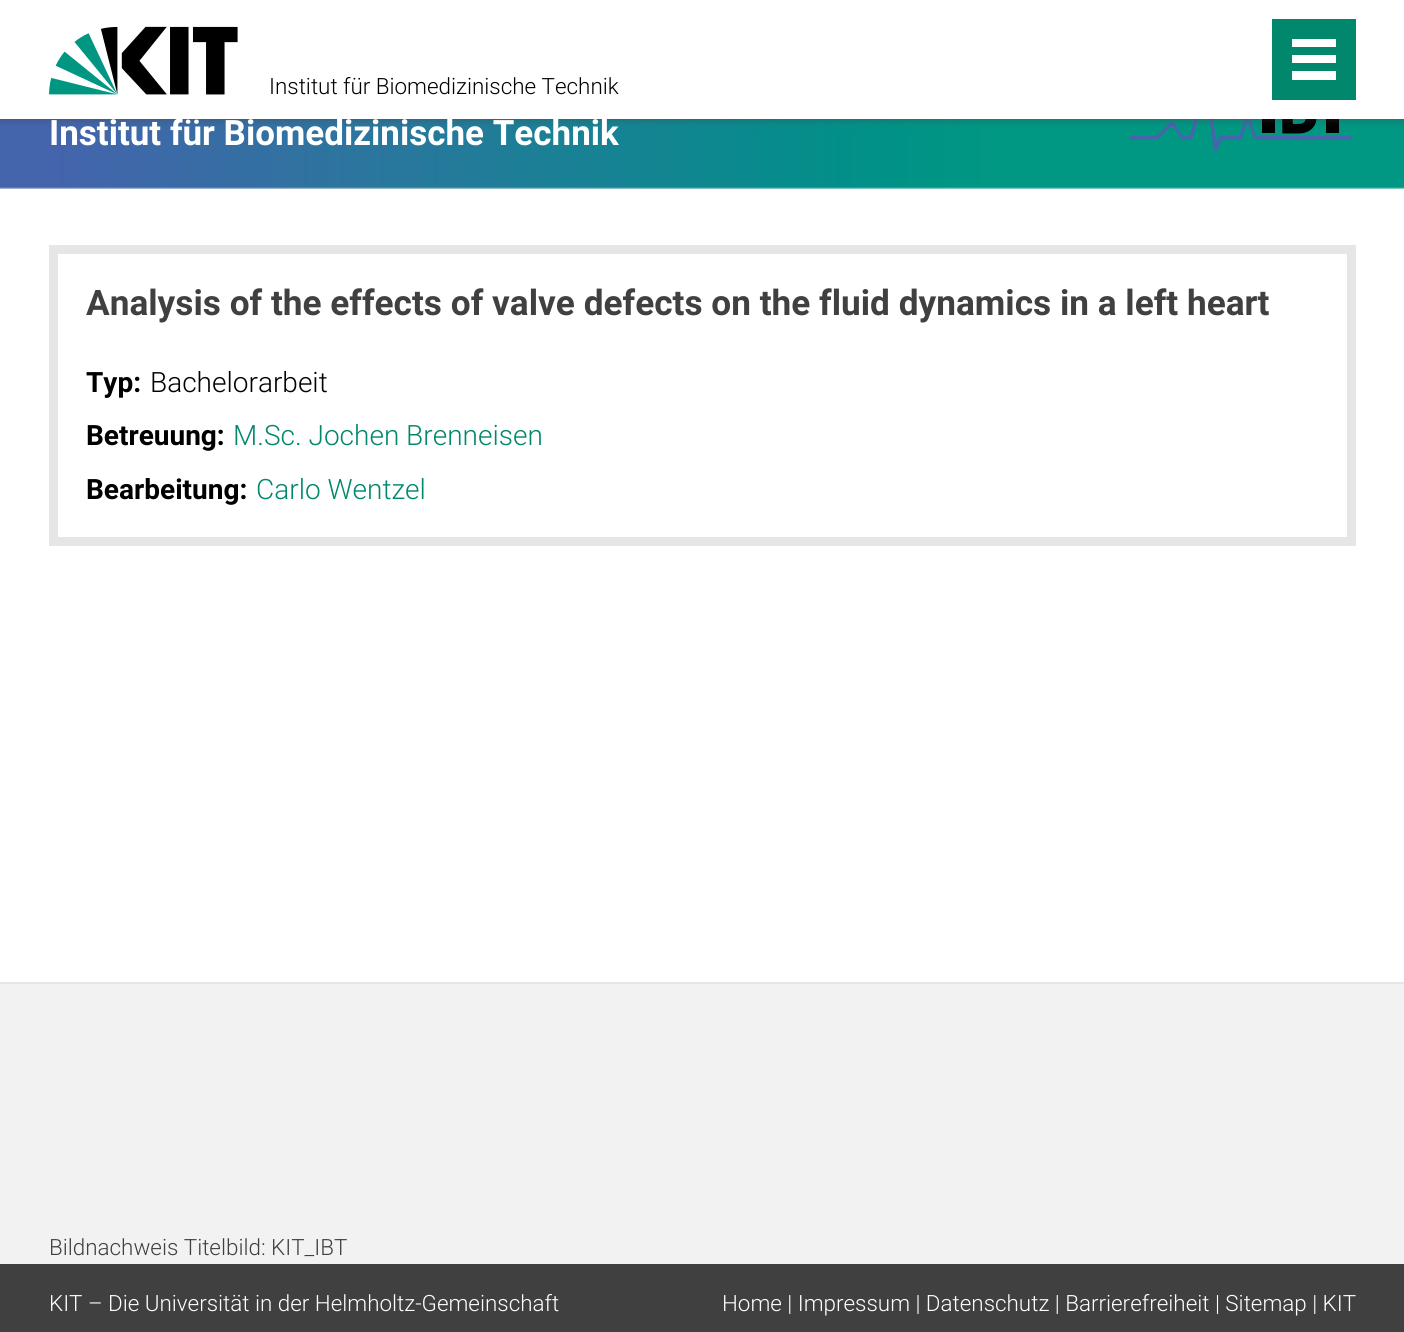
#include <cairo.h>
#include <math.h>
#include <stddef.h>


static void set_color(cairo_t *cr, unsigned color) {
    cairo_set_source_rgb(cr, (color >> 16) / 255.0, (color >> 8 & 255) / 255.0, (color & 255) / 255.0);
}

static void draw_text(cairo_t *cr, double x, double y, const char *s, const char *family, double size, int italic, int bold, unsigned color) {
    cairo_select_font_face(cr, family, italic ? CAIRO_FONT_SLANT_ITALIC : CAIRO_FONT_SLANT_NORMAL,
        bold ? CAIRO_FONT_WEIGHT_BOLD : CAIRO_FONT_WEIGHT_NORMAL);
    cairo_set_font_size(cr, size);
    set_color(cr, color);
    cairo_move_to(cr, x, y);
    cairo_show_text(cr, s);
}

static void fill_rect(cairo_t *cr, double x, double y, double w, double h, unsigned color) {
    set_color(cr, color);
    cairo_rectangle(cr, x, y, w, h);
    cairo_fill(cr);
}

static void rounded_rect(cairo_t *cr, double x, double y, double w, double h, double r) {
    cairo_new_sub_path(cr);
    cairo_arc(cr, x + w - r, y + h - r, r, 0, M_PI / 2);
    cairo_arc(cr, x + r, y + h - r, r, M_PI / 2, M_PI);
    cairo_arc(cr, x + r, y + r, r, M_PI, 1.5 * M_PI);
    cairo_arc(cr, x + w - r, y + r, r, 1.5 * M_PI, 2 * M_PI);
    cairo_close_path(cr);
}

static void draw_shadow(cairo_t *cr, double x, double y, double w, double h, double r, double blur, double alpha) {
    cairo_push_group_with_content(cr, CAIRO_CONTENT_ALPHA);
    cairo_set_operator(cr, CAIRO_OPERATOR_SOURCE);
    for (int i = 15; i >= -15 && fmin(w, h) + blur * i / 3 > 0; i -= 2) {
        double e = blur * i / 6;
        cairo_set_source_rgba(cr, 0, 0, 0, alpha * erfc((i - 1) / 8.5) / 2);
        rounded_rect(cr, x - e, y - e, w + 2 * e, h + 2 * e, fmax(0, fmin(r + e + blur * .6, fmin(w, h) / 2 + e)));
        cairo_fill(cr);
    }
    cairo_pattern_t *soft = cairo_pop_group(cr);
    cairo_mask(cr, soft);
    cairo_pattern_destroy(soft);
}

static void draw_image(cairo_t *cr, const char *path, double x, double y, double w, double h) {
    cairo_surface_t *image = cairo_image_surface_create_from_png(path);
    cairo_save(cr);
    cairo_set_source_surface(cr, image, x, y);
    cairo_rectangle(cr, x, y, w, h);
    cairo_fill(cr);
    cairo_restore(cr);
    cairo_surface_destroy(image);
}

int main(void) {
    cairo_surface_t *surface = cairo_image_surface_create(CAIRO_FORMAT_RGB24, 1404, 1332);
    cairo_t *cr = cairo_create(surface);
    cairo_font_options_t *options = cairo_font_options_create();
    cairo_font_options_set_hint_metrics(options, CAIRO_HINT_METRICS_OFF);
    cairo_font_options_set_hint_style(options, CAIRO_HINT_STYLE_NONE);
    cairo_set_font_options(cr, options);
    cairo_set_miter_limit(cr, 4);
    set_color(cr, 0xFFFFFF);
    cairo_paint(cr);
    draw_image(cr, "assets/img3.png", 0, 119, 1404, 70);
    draw_image(cr, "assets/img2.png", 1129, 119, 224, 32);
    set_color(cr, 0x404040);
    draw_shadow(cr, 0, 0, 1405, 119, 0, 4.5, 0.5);
    fill_rect(cr, 0, 0, 1404, 119, 0xFFFFFF);
    draw_image(cr, "assets/img1.png", 49, 26, 189, 69);
    draw_text(cr, 269, 94, "Institut für Biomedizinische Technik", "Roboto Light", 22.4, 0, 0, 0x000000);
    fill_rect(cr, 1272, 19, 84, 81, 0x00876C);
    fill_rect(cr, 1292, 71, 44, 9, 0xFFFFFF);
    fill_rect(cr, 1292, 55, 44, 8, 0xFFFFFF);
    fill_rect(cr, 1292, 39, 44, 8, 0xFFFFFF);
    draw_text(cr, 49, 145, "Institut für Biomedizinische Technik", "Roboto", 35, 0, 1, 0xFFFFFF);
    cairo_rectangle(cr, 53.5, 249.5, 1298, 292);
    set_color(cr, 0xE6E6E6);
    cairo_set_line_width(cr, 9);
    cairo_stroke(cr);
    draw_text(cr, 86, 315, "Analysis of the effects of valve defects on the fluid dynamics in a left heart", "Roboto", 35.2, 0, 1, 0x404040);
    draw_text(cr, 86, 392, "Typ:", "Roboto", 28, 0, 1, 0x000000);
    draw_text(cr, 150, 392, "Bachelorarbeit", "Roboto Light", 28, 0, 0, 0x000000);
    draw_text(cr, 86, 445, "Betreuung:", "Roboto", 28, 0, 1, 0x000000);
    draw_text(cr, 233, 445, "M.Sc. Jochen Brenneisen", "Roboto Light", 28, 0, 0, 0x00876C);
    draw_text(cr, 86, 499, "Bearbeitung:", "Roboto", 28, 0, 1, 0x000000);
    draw_text(cr, 256, 499, "Carlo Wentzel", "Roboto Light", 28, 0, 0, 0x00876C);
    fill_rect(cr, 0, 984, 1404, 280, 0xF2F2F2);
    fill_rect(cr, 0, 982, 1404, 2, 0xE6E6E6);
    draw_text(cr, 49, 1255, "Bildnachweis Titelbild: KIT_IBT", "Roboto Light", 22.4, 0, 0, 0x404040);
    fill_rect(cr, 0, 1264, 1404, 68, 0x404040);
    draw_text(cr, 49, 1311, "KIT – Die Universität in der Helmholtz-Gemeinschaft", "Roboto Light", 22.4, 0, 0, 0xFFFFFF);
    draw_text(cr, 722, 1311, "Home | Impressum | Datenschutz | Barrierefreiheit | Sitemap | KIT", "Roboto Light", 22.4, 0, 0, 0xFFFFFF);
    cairo_surface_write_to_png(surface, "output.png");
    cairo_font_options_destroy(options);
    cairo_destroy(cr);
    cairo_surface_destroy(surface);
    return 0;
}
